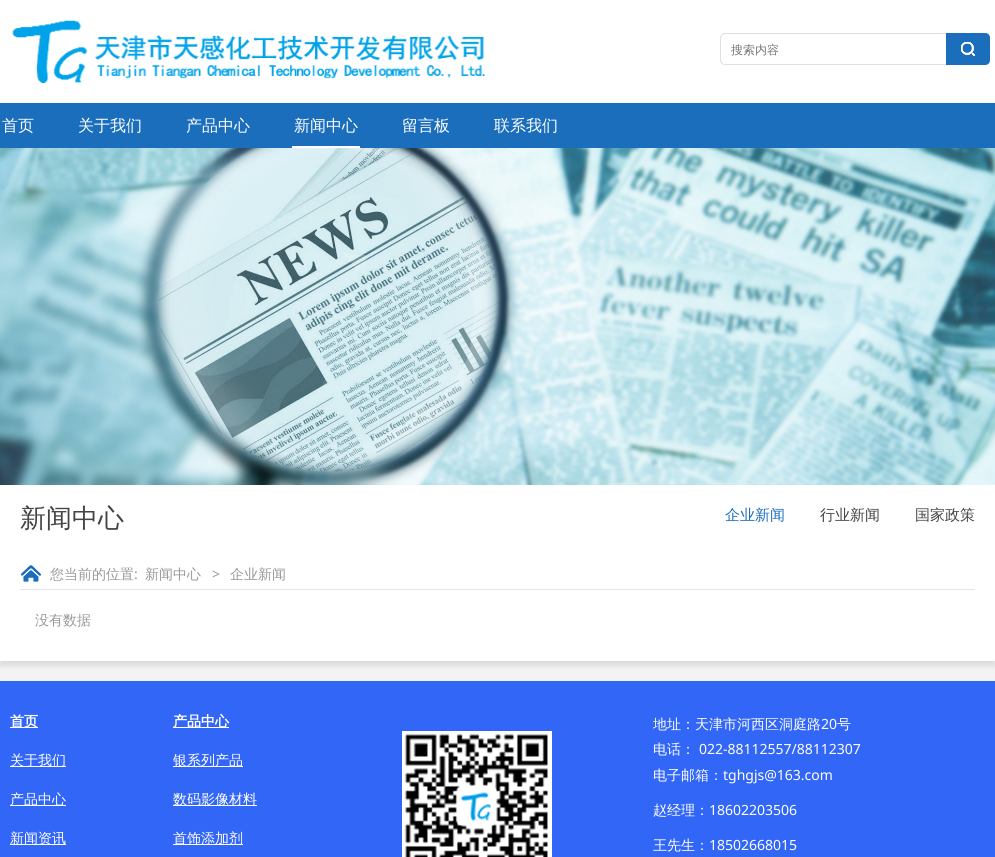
#include <cairo.h>
#include <math.h>
#include <stddef.h>


static void set_color(cairo_t *cr, unsigned color) {
    cairo_set_source_rgb(cr, (color >> 16) / 255.0, (color >> 8 & 255) / 255.0, (color & 255) / 255.0);
}

static void draw_text(cairo_t *cr, double x, double y, const char *s, const char *family, double size, int italic, int bold, unsigned color) {
    cairo_select_font_face(cr, family, italic ? CAIRO_FONT_SLANT_ITALIC : CAIRO_FONT_SLANT_NORMAL,
        bold ? CAIRO_FONT_WEIGHT_BOLD : CAIRO_FONT_WEIGHT_NORMAL);
    cairo_set_font_size(cr, size);
    set_color(cr, color);
    cairo_move_to(cr, x, y);
    cairo_show_text(cr, s);
}

static void fill_rect(cairo_t *cr, double x, double y, double w, double h, unsigned color) {
    set_color(cr, color);
    cairo_rectangle(cr, x, y, w, h);
    cairo_fill(cr);
}

static void rounded_rect(cairo_t *cr, double x, double y, double w, double h, double r) {
    cairo_new_sub_path(cr);
    cairo_arc(cr, x + w - r, y + h - r, r, 0, M_PI / 2);
    cairo_arc(cr, x + r, y + h - r, r, M_PI / 2, M_PI);
    cairo_arc(cr, x + r, y + r, r, M_PI, 1.5 * M_PI);
    cairo_arc(cr, x + w - r, y + r, r, 1.5 * M_PI, 2 * M_PI);
    cairo_close_path(cr);
}

static void draw_shadow(cairo_t *cr, double x, double y, double w, double h, double r, double blur, double alpha) {
    cairo_push_group_with_content(cr, CAIRO_CONTENT_ALPHA);
    cairo_set_operator(cr, CAIRO_OPERATOR_SOURCE);
    for (int i = 15; i >= -15 && fmin(w, h) + blur * i / 3 > 0; i -= 2) {
        double e = blur * i / 6;
        cairo_set_source_rgba(cr, 0, 0, 0, alpha * erfc((i - 1) / 8.5) / 2);
        rounded_rect(cr, x - e, y - e, w + 2 * e, h + 2 * e, fmax(0, fmin(r + e + blur * .6, fmin(w, h) / 2 + e)));
        cairo_fill(cr);
    }
    cairo_pattern_t *soft = cairo_pop_group(cr);
    cairo_mask(cr, soft);
    cairo_pattern_destroy(soft);
}

static void draw_image(cairo_t *cr, const char *path, double x, double y, double w, double h) {
    cairo_surface_t *image = cairo_image_surface_create_from_png(path);
    cairo_save(cr);
    cairo_set_source_surface(cr, image, x, y);
    cairo_rectangle(cr, x, y, w, h);
    cairo_fill(cr);
    cairo_restore(cr);
    cairo_surface_destroy(image);
}

int main(void) {
    cairo_surface_t *surface = cairo_image_surface_create(CAIRO_FORMAT_RGB24, 995, 857);
    cairo_t *cr = cairo_create(surface);
    cairo_font_options_t *options = cairo_font_options_create();
    cairo_font_options_set_hint_metrics(options, CAIRO_HINT_METRICS_OFF);
    cairo_font_options_set_hint_style(options, CAIRO_HINT_STYLE_NONE);
    cairo_set_font_options(cr, options);
    cairo_set_miter_limit(cr, 4);
    set_color(cr, 0xF3F3F3);
    cairo_paint(cr);
    fill_rect(cr, 0, 0, 995, 103, 0xFFFFFF);
    draw_image(cr, "assets/img1.png", 12, 20, 474, 64);
    rounded_rect(cr, 720.5, 33.5, 269, 31, 4.5);
    set_color(cr, 0xE0E0E0);
    cairo_set_line_width(cr, 1);
    cairo_stroke(cr);
    draw_text(cr, 731, 54, "搜索内容", "WenQuanYi Zen Hei Medium", 12, 0, 0, 0x757575);
    set_color(cr, 0x1B6EBC);
    cairo_new_path(cr);
    cairo_move_to(cr, 946, 33);
    cairo_line_to(cr, 985, 33);
    cairo_curve_to(cr, 988, 33, 990, 35, 990, 38);
    cairo_line_to(cr, 990, 60);
    cairo_curve_to(cr, 990, 63, 988, 65, 985, 65);
    cairo_line_to(cr, 946, 65);
    cairo_close_path(cr);
    cairo_fill(cr);
    draw_image(cr, "assets/img2.png", 961, 42, 14, 14);
    fill_rect(cr, 0, 103, 995, 45, 0x1B6EBC);
    draw_text(cr, 2, 131, "首页", "WenQuanYi Zen Hei Medium", 16, 0, 0, 0xFFFFFF);
    draw_text(cr, 78, 131, "关于我们", "WenQuanYi Zen Hei Medium", 16, 0, 0, 0xFFFFFF);
    draw_text(cr, 186, 131, "产品中心", "WenQuanYi Zen Hei Medium", 16, 0, 0, 0xFFFFFF);
    draw_text(cr, 294, 131, "新闻中心", "WenQuanYi Zen Hei Medium", 16, 0, 0, 0xFFFFFF);
    fill_rect(cr, 292, 146, 68, 2, 0xFFFFFF);
    draw_text(cr, 402, 131, "留言板", "WenQuanYi Zen Hei Medium", 16, 0, 0, 0xFFFFFF);
    draw_text(cr, 494, 131, "联系我们", "WenQuanYi Zen Hei Medium", 16, 0, 0, 0xFFFFFF);
    set_color(cr, 0x000000);
    draw_shadow(cr, 0, 490, 995, 176, 0, 2.5, 0.1);
    draw_image(cr, "assets/img3.png", 0, 148, 995, 337);
    fill_rect(cr, 0, 485, 995, 176, 0xFFFFFF);
    draw_text(cr, 20, 527, "新闻中心", "WenQuanYi Zen Hei Medium", 26, 0, 0, 0x444444);
    draw_text(cr, 725, 520, "企业新闻", "WenQuanYi Zen Hei Medium", 15, 0, 0, 0x1B6EBC);
    draw_text(cr, 820, 520, "行业新闻", "WenQuanYi Zen Hei Medium", 15, 0, 0, 0x444444);
    draw_text(cr, 915, 520, "国家政策", "WenQuanYi Zen Hei Medium", 15, 0, 0, 0x444444);
    draw_image(cr, "assets/img4.png", 21, 565, 20, 17);
    fill_rect(cr, 20, 589, 955, 1, 0xE5E5E5);
    draw_text(cr, 50, 579, "您当前的位置", "WenQuanYi Zen Hei Medium", 14, 0, 0, 0x999999);
    draw_text(cr, 134, 579, ":", "Noto Sans", 14, 0, 0, 0x999999);
    draw_text(cr, 145, 579, "新闻中心", "WenQuanYi Zen Hei Medium", 14, 0, 0, 0x999999);
    draw_text(cr, 212, 579, ">", "Noto Sans", 14, 0, 0, 0x999999);
    draw_text(cr, 230, 579, "企业新闻", "WenQuanYi Zen Hei Medium", 14, 0, 0, 0x999999);
    draw_text(cr, 35, 625, "没有数据", "WenQuanYi Zen Hei Medium", 14, 0, 0, 0x999999);
    fill_rect(cr, 0, 681, 995, 176, 0x3166F6);
    fill_rect(cr, 10, 727, 28, 1, 0xFFFFFF);
    draw_text(cr, 10, 726, "首页", "WenQuanYi Zen Hei", 14, 0, 1, 0xFFFFFF);
    fill_rect(cr, 10, 766, 56, 1, 0xFFFFFF);
    draw_text(cr, 10, 765, "关于我们", "WenQuanYi Zen Hei Medium", 14, 0, 0, 0xFFFFFF);
    fill_rect(cr, 10, 805, 56, 1, 0xFFFFFF);
    draw_text(cr, 10, 804, "产品中心", "WenQuanYi Zen Hei Medium", 14, 0, 0, 0xFFFFFF);
    fill_rect(cr, 10, 844, 56, 1, 0xFFFFFF);
    draw_text(cr, 10, 843, "新闻资讯", "WenQuanYi Zen Hei Medium", 14, 0, 0, 0xFFFFFF);
    fill_rect(cr, 173, 727, 56, 1, 0xFFFFFF);
    draw_text(cr, 173, 726, "产品中心", "WenQuanYi Zen Hei", 14, 0, 1, 0xFFFFFF);
    fill_rect(cr, 173, 766, 70, 1, 0xFFFFFF);
    draw_text(cr, 173, 765, "银系列产品", "WenQuanYi Zen Hei Medium", 14, 0, 0, 0xFFFFFF);
    fill_rect(cr, 173, 805, 84, 1, 0xFFFFFF);
    draw_text(cr, 173, 804, "数码影像材料", "WenQuanYi Zen Hei Medium", 14, 0, 0, 0xFFFFFF);
    fill_rect(cr, 173, 844, 70, 1, 0xFFFFFF);
    draw_text(cr, 173, 843, "首饰添加剂", "WenQuanYi Zen Hei Medium", 14, 0, 0, 0xFFFFFF);
    draw_image(cr, "assets/img5.png", 402, 731, 150, 126);
    draw_text(cr, 653, 729, "地址：天津市河西区洞庭路", "WenQuanYi Zen Hei Medium", 14, 0, 0, 0xFFFFFF);
    draw_text(cr, 821, 729, "20", "Noto Sans", 14, 0, 0, 0xFFFFFF);
    draw_text(cr, 837, 729, "号", "WenQuanYi Zen Hei Medium", 14, 0, 0, 0xFFFFFF);
    draw_text(cr, 653, 754, "电话：", "WenQuanYi Zen Hei Medium", 14, 0, 0, 0xFFFFFF);
    draw_text(cr, 699, 754, "022-88112557/88112307", "Noto Sans", 14, 0, 0, 0xFFFFFF);
    draw_text(cr, 653, 780, "电子邮箱：", "WenQuanYi Zen Hei Medium", 14, 0, 0, 0xFFFFFF);
    draw_text(cr, 723, 780, "tghgjs@163.com", "Noto Sans", 14, 0, 0, 0xFFFFFF);
    draw_text(cr, 653, 815, "赵经理：", "WenQuanYi Zen Hei Medium", 14, 0, 0, 0xFFFFFF);
    draw_text(cr, 709, 815, "18602203506", "Noto Sans", 14, 0, 0, 0xFFFFFF);
    draw_text(cr, 653, 850, "王先生：", "WenQuanYi Zen Hei Medium", 14, 0, 0, 0xFFFFFF);
    draw_text(cr, 709, 850, "18502668015", "Noto Sans", 14, 0, 0, 0xFFFFFF);
    cairo_surface_write_to_png(surface, "output.png");
    cairo_font_options_destroy(options);
    cairo_destroy(cr);
    cairo_surface_destroy(surface);
    return 0;
}
